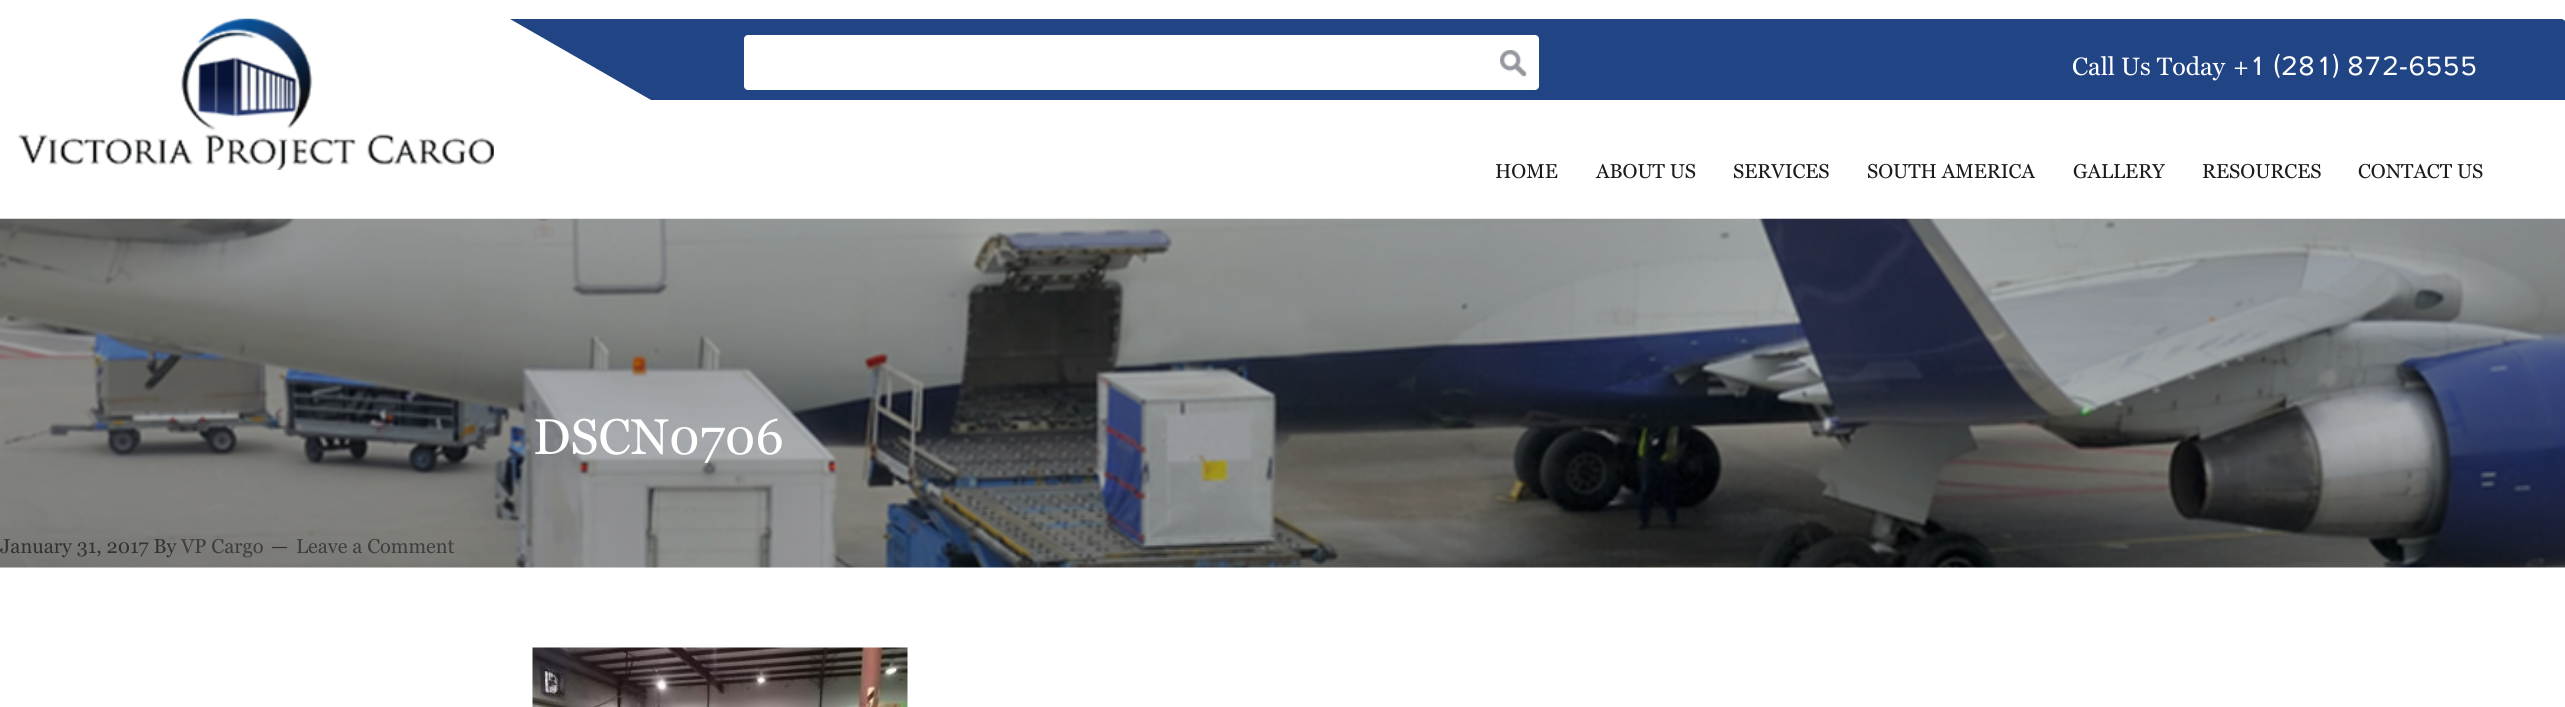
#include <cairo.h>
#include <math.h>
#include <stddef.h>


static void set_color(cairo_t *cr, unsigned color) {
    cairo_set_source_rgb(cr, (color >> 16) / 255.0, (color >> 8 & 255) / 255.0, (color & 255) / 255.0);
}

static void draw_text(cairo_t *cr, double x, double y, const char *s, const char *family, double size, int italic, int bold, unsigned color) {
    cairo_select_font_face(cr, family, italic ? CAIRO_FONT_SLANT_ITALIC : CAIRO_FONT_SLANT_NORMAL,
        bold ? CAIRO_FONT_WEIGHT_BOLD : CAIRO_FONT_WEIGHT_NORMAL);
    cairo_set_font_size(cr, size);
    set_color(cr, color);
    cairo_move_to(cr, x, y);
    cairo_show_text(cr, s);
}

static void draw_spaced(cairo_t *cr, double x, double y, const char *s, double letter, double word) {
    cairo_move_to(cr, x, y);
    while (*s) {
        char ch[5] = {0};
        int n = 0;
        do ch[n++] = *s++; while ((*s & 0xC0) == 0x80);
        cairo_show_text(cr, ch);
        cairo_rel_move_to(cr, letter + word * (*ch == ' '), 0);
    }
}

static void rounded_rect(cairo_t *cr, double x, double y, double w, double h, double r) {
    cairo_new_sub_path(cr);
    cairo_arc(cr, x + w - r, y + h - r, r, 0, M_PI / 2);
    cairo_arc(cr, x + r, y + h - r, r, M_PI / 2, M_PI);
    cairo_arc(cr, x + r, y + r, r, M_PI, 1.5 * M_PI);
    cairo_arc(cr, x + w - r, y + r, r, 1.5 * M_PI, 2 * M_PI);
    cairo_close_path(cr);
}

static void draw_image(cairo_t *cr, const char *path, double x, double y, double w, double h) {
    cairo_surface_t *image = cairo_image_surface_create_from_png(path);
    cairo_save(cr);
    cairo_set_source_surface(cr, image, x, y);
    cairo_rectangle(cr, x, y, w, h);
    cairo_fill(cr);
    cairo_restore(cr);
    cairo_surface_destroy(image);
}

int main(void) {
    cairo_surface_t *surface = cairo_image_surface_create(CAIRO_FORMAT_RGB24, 2565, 707);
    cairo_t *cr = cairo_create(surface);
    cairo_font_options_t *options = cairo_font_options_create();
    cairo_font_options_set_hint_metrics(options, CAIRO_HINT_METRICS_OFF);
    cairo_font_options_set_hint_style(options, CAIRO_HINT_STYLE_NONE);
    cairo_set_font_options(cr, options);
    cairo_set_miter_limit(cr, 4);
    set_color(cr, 0xFFFFFF);
    cairo_paint(cr);
    draw_image(cr, "assets/img1.png", 18, 18, 476, 152);
    set_color(cr, 0x214584);
    cairo_new_path(cr);
    cairo_move_to(cr, 510, 19);
    cairo_line_to(cr, 2562, 19);
    cairo_line_to(cr, 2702, 100);
    cairo_line_to(cr, 651, 100);
    cairo_close_path(cr);
    cairo_fill(cr);
    set_color(cr, 0xFFFFFF);
    rounded_rect(cr, 744, 35, 795, 55, 4);
    cairo_fill(cr);
    draw_image(cr, "assets/img2.png", 1500, 50, 27, 27);
    draw_text(cr, 2072, 75, "Call Us Today", "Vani", 25, 0, 0, 0xFFFFFF);
    cairo_select_font_face(cr, "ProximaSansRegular", CAIRO_FONT_SLANT_NORMAL, CAIRO_FONT_WEIGHT_NORMAL);
    cairo_set_font_size(cr, 27.5);
    draw_spaced(cr, 2234, 75, "+1 (281) 872-6555", 1.25, 0);
    draw_text(cr, 1495, 178, "HOME", "Vani", 20, 0, 0, 0x1B1B1C);
    draw_text(cr, 1596, 178, "ABOUT US", "Vani", 20, 0, 0, 0x1B1B1C);
    draw_text(cr, 1733, 178, "SERVICES", "Vani", 20, 0, 0, 0x1B1B1C);
    draw_text(cr, 1867, 178, "SOUTH AMERICA", "Vani", 20, 0, 0, 0x1B1B1C);
    draw_text(cr, 2073, 178, "GALLERY", "Vani", 20, 0, 0, 0x1B1B1C);
    draw_text(cr, 2202, 178, "RESOURCES", "Vani", 20, 0, 0, 0x1B1B1C);
    draw_text(cr, 2358, 178, "CONTACT US", "Vani", 20, 0, 0, 0x1B1B1C);
    draw_image(cr, "assets/img3.png", 0, 218, 2565, 350);
    draw_text(cr, 533, 454, "DSCN0706", "Vani", 50, 0, 0, 0xFFFFFF);
    draw_text(cr, 0, 553, "January 31, 2017 By", "Vani", 20, 0, 0, 0x333333);
    draw_text(cr, 181, 553, "VP Cargo", "Vani", 20, 0, 0, 0x3E3E40);
    draw_text(cr, 271, 553, "—", "Vani", 20, 0, 0, 0x333333);
    draw_text(cr, 296, 553, "Leave a Comment", "Vani", 20, 0, 0, 0x3E3E40);
    draw_image(cr, "assets/img4.png", 532, 647, 376, 60);
    cairo_surface_write_to_png(surface, "output.png");
    cairo_font_options_destroy(options);
    cairo_destroy(cr);
    cairo_surface_destroy(surface);
    return 0;
}
